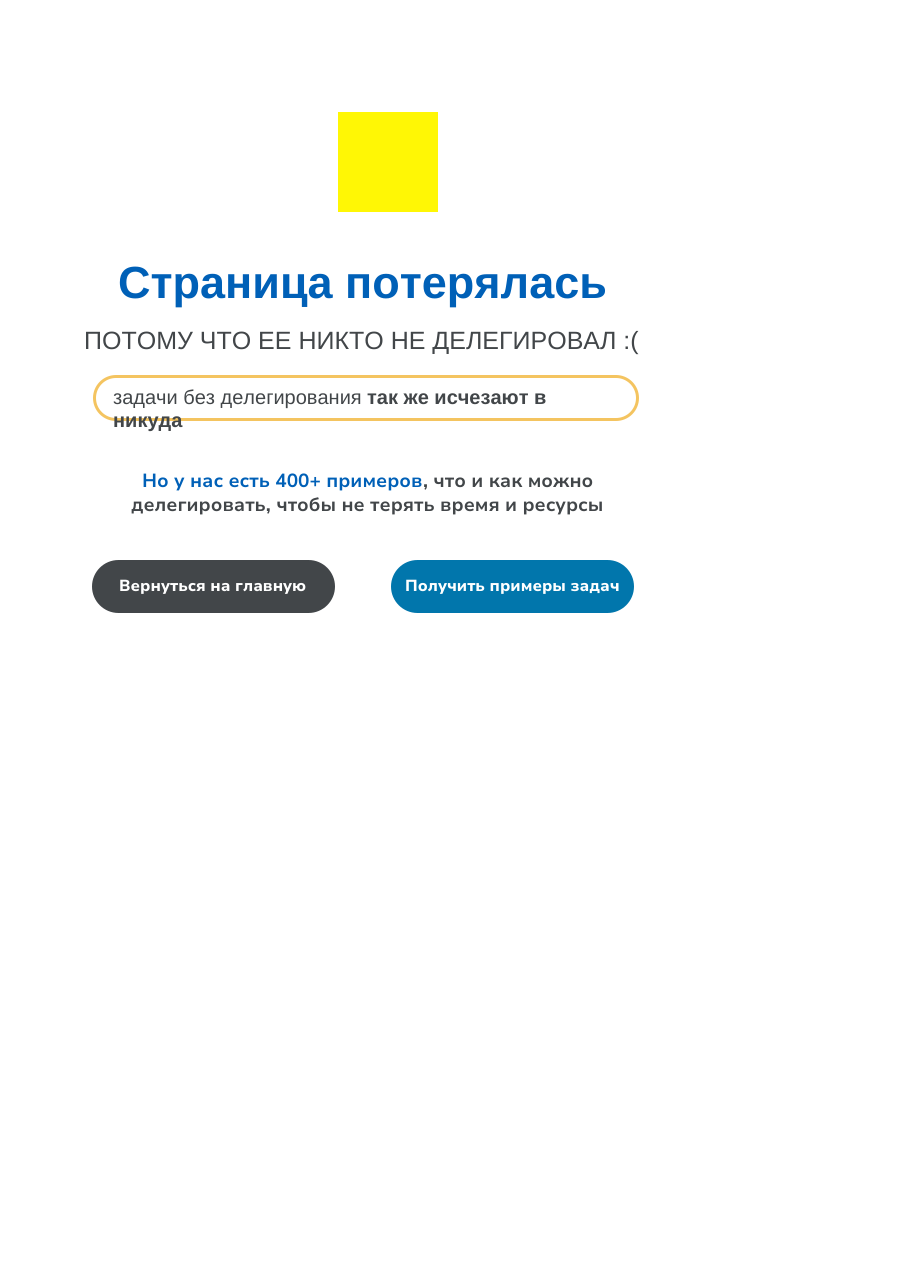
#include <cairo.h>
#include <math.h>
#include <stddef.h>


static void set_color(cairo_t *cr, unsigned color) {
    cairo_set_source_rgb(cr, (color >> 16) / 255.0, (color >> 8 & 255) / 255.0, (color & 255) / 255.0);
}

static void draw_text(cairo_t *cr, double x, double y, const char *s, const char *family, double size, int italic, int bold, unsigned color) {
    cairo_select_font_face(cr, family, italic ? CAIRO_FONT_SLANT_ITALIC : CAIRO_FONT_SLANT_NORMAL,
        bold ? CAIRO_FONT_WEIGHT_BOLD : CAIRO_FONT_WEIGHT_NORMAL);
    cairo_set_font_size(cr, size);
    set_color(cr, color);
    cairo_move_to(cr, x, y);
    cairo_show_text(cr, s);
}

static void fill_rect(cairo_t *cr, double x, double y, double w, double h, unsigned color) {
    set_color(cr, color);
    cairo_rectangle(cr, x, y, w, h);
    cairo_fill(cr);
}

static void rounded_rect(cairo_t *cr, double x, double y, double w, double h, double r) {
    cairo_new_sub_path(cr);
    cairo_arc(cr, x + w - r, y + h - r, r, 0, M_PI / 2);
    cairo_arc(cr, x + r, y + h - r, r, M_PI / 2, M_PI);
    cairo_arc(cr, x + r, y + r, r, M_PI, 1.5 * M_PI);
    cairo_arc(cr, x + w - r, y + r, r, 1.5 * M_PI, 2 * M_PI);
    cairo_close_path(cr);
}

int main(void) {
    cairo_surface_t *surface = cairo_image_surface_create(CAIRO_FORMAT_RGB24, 918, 1270);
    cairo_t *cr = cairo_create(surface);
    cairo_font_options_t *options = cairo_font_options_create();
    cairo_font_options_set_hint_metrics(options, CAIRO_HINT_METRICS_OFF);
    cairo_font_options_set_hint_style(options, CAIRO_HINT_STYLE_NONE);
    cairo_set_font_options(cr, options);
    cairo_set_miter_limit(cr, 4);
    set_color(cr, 0xFFFFFF);
    cairo_paint(cr);
    fill_rect(cr, 338, 112, 100, 100, 0xFFF705);
    draw_text(cr, 118, 298, "Страница потерялась", "Liberation Sans", 45, 0, 1, 0x0060B7);
    draw_text(cr, 84, 349, "ПОТОМУ ЧТО ЕЕ НИКТО НЕ ДЕЛЕГИРОВАЛ :(", "Liberation Sans", 25, 0, 0, 0x424649);
    rounded_rect(cr, 94.5, 376.5, 543, 43, 21.5);
    set_color(cr, 0xF4C460);
    cairo_set_line_width(cr, 3);
    cairo_stroke(cr);
    draw_text(cr, 113, 404, "задачи без делегирования", "Liberation Sans", 20, 0, 0, 0x424649);
    draw_text(cr, 367, 404, "так же исчезают в", "Liberation Sans", 20, 0, 1, 0x424649);
    draw_text(cr, 113, 427, "никуда", "Liberation Sans", 20, 0, 1, 0x424649);
    draw_text(cr, 142, 487, "Но у нас есть 400+ примеров", "Nunito Sans", 19, 0, 1, 0x0060B7);
    draw_text(cr, 423, 487, ", что и как можно", "Nunito Sans", 19, 0, 1, 0x424649);
    draw_text(cr, 131, 511, "делегировать, чтобы не терять время и ресурсы", "Nunito Sans", 19, 0, 1, 0x424649);
    rounded_rect(cr, 92, 560, 243, 53, 26.5);
    cairo_fill(cr);
    draw_text(cr, 119, 591, "Вернуться на главную", "Nunito Sans ExtraBold", 16, 0, 0, 0xFFFFFF);
    set_color(cr, 0x0176AC);
    rounded_rect(cr, 391, 560, 243, 53, 26.5);
    cairo_fill(cr);
    draw_text(cr, 405, 591, "Получить примеры задач", "Nunito Sans ExtraBold", 16, 0, 0, 0xFFFFFF);
    cairo_surface_write_to_png(surface, "output.png");
    cairo_font_options_destroy(options);
    cairo_destroy(cr);
    cairo_surface_destroy(surface);
    return 0;
}
